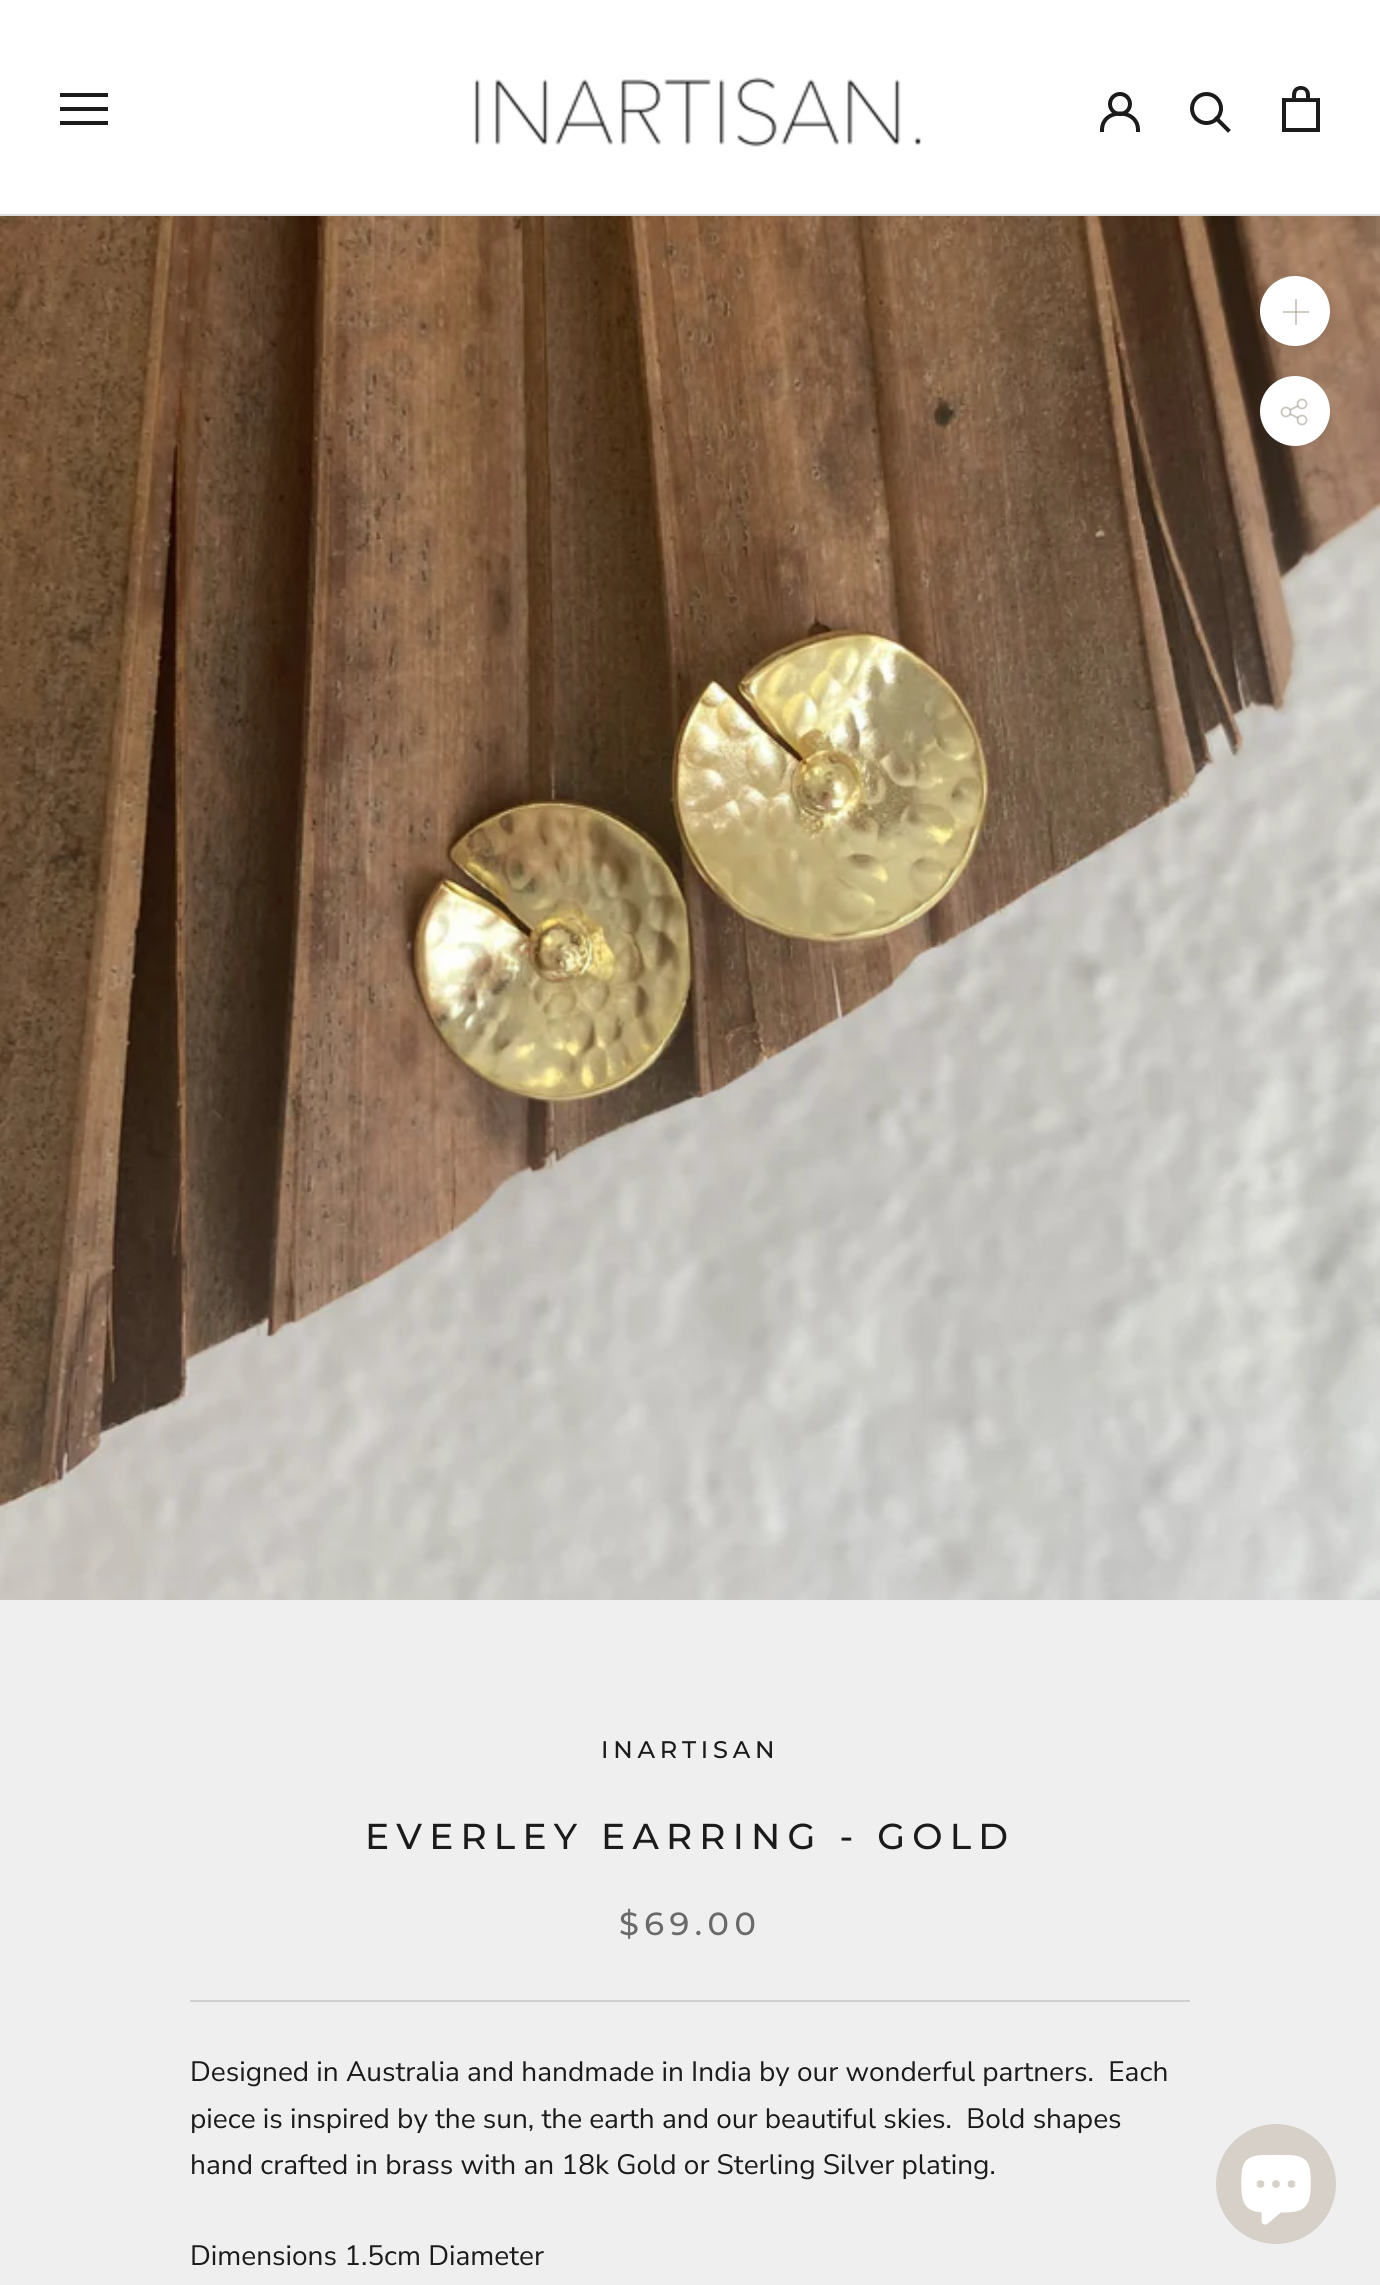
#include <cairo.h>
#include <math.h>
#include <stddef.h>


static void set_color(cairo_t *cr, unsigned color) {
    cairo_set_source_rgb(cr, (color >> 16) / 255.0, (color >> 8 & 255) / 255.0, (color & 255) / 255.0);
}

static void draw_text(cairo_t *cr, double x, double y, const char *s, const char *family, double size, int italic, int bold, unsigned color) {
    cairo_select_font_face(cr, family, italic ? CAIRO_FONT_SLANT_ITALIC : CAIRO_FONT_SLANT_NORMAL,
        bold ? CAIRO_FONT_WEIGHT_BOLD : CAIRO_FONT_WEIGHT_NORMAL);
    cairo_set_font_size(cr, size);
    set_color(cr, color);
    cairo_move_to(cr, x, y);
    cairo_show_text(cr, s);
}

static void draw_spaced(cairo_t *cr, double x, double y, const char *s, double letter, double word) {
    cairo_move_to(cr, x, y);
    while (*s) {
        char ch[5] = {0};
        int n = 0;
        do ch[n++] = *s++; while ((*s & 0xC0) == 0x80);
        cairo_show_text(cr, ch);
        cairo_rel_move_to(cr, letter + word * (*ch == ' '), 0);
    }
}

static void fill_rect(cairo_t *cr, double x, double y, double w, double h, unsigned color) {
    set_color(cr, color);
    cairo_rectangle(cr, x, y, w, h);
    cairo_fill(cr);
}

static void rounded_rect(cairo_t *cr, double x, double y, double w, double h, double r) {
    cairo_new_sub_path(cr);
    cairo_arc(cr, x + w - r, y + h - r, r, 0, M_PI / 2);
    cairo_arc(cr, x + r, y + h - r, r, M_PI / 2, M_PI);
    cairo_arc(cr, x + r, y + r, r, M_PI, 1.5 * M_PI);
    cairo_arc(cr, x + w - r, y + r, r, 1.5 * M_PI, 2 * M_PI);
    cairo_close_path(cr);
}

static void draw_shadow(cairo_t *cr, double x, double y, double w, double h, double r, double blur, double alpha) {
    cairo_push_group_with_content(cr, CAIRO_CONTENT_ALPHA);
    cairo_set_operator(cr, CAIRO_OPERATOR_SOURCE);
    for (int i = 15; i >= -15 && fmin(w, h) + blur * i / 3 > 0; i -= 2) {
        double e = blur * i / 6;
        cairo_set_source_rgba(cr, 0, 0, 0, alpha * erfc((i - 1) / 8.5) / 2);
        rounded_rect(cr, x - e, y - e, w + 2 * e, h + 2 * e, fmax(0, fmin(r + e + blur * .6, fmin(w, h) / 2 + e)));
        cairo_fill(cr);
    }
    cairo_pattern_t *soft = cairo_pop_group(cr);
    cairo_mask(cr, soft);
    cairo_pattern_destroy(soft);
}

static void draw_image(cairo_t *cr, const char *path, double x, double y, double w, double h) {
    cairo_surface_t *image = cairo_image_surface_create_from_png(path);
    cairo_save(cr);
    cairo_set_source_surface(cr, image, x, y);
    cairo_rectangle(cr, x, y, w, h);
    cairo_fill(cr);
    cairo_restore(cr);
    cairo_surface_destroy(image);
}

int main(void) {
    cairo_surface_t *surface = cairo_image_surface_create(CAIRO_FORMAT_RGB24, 1380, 2285);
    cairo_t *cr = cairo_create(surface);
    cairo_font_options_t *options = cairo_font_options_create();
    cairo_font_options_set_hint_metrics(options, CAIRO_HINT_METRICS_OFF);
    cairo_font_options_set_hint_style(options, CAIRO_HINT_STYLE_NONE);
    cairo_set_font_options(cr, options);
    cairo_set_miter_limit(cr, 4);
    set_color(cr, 0xEFEFEF);
    cairo_paint(cr);
    fill_rect(cr, 0, 0, 1380, 214, 0xFFFFFF);
    fill_rect(cr, 0, 214, 1380, 2, 0xDDDDDD);
    set_color(cr, 0x1C1B1B);
    cairo_new_path(cr);
    cairo_move_to(cr, 60, 125);
    cairo_line_to(cr, 60, 121);
    cairo_line_to(cr, 108, 121);
    cairo_line_to(cr, 108, 125);
    cairo_close_path(cr);
    cairo_move_to(cr, 60, 107);
    cairo_line_to(cr, 108, 107);
    cairo_line_to(cr, 108, 111);
    cairo_line_to(cr, 60, 111);
    cairo_close_path(cr);
    cairo_move_to(cr, 60, 93);
    cairo_line_to(cr, 108, 93);
    cairo_line_to(cr, 108, 97);
    cairo_line_to(cr, 60, 97);
    cairo_close_path(cr);
    cairo_fill(cr);
    draw_image(cr, "assets/img1.png", 474, 77, 447, 70);
    cairo_new_path(cr);
    cairo_move_to(cr, 1102, 130);
    cairo_curve_to(cr, 1102, 108, 1138, 108, 1138, 130);
    cairo_set_line_width(cr, 4);
    cairo_set_line_cap(cr, CAIRO_LINE_CAP_SQUARE);
    cairo_stroke(cr);
    cairo_arc(cr, 1120, 104, 10, 0, 2 * M_PI);
    cairo_set_line_cap(cr, CAIRO_LINE_CAP_BUTT);
    cairo_stroke(cr);
    cairo_new_path(cr);
    cairo_move_to(cr, 1228, 130);
    cairo_line_to(cr, 1216.5, 118.5);
    cairo_set_line_cap(cr, CAIRO_LINE_CAP_SQUARE);
    cairo_stroke(cr);
    cairo_arc(cr, 1206.5, 108.5, 14.5, 0, 2 * M_PI);
    cairo_set_line_cap(cr, CAIRO_LINE_CAP_BUTT);
    cairo_stroke(cr);
    draw_image(cr, "assets/img2.png", 1282, 86, 38, 46);
    draw_image(cr, "assets/img3.png", 0, 216, 1380, 1384);
    set_color(cr, 0x363636);
    draw_shadow(cr, 1260, 278, 70, 70, 35, 5, 0.15);
    set_color(cr, 0xFFFFFF);
    cairo_arc(cr, 1295, 311, 35, 0, 2 * M_PI);
    cairo_fill(cr);
    fill_rect(cr, 1295, 299, 2, 26, 0xD0CCC5);
    cairo_set_source_rgba(cr, 0.588, 0.557, 0.49, 0.45);
    cairo_rectangle(cr, 1283, 311, 26, 2);
    cairo_fill(cr);
    set_color(cr, 0x363636);
    draw_shadow(cr, 1260, 378, 70, 70, 35, 5, 0.15);
    set_color(cr, 0xFFFFFF);
    cairo_arc(cr, 1295, 411, 35, 0, 2 * M_PI);
    cairo_fill(cr);
    draw_image(cr, "assets/img4.png", 1280, 398, 28, 28);
    fill_rect(cr, 190, 2000, 1000, 2, 0xCFCFCF);
    cairo_select_font_face(cr, "Montserrat Medium", CAIRO_FONT_SLANT_NORMAL, CAIRO_FONT_WEIGHT_NORMAL);
    cairo_set_font_size(cr, 24);
    set_color(cr, 0x1C1B1B);
    draw_spaced(cr, 601, 1758, "INARTISAN", 4.75, 0);
    cairo_set_font_size(cr, 36);
    draw_spaced(cr, 365, 1849, "EVERLEY EARRING - GOLD", 7.2, 0);
    cairo_set_font_size(cr, 32);
    set_color(cr, 0x6A6A6A);
    draw_spaced(cr, 619, 1935, "$69.00", 5.5, 0);
    draw_text(cr, 190, 2081, "Designed in Australia and handmade in India by our wonderful partners.  Each", "Nunito Sans", 28, 0, 0, 0x1C1B1B);
    draw_text(cr, 190, 2128, "piece is inspired by the sun, the earth and our beautiful skies.  Bold shapes", "Nunito Sans", 28, 0, 0, 0x1C1B1B);
    draw_text(cr, 190, 2174, "hand crafted in brass with an 18k Gold or Sterling Silver plating.", "Nunito Sans", 28, 0, 0, 0x1C1B1B);
    draw_text(cr, 190, 2265, "Dimensions 1.5cm Diameter", "Nunito Sans", 28, 0, 0, 0x1C1B1B);
    set_color(cr, 0xD6D0C8);
    cairo_new_path(cr);
    cairo_arc(cr, 1276, 2184, 60, 0, 2 * M_PI);
    cairo_fill(cr);
    draw_image(cr, "assets/img5.png", 1241, 2155, 70, 70);
    cairo_surface_write_to_png(surface, "output.png");
    cairo_font_options_destroy(options);
    cairo_destroy(cr);
    cairo_surface_destroy(surface);
    return 0;
}
